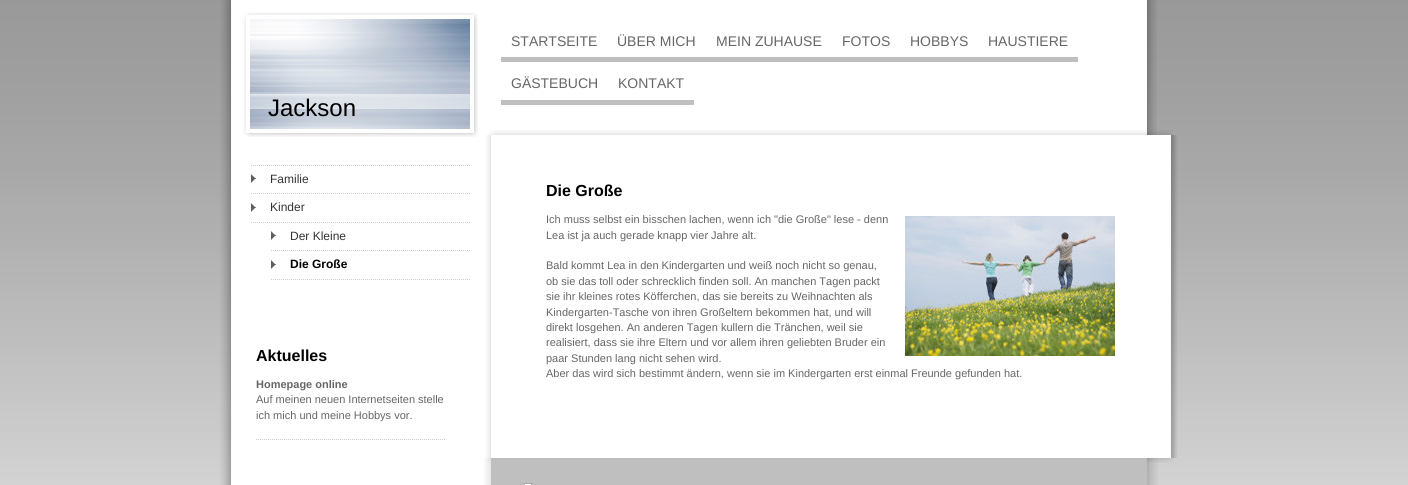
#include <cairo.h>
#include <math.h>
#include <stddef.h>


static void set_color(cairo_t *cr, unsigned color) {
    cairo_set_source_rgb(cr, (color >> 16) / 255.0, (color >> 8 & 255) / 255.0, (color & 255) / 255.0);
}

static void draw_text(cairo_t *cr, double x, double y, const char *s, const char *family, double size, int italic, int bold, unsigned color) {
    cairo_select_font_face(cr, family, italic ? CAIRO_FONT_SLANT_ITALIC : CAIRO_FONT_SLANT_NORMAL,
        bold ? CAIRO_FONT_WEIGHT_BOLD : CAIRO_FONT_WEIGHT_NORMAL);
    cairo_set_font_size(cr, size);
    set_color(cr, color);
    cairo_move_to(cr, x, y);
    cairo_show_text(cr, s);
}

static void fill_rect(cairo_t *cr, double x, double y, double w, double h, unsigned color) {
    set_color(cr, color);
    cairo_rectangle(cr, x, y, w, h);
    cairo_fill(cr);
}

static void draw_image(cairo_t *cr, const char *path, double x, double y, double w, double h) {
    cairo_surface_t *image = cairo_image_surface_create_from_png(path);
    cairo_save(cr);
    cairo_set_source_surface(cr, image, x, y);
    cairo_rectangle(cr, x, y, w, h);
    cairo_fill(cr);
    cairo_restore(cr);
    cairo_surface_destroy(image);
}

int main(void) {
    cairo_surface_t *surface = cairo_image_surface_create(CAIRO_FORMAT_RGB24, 1408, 485);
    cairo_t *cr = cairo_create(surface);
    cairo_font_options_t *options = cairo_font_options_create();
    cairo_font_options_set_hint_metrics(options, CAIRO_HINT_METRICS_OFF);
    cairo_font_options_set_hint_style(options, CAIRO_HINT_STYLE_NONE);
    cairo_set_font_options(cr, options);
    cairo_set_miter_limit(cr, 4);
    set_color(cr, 0xFFFFFF);
    cairo_paint(cr);
    draw_image(cr, "assets/img1.png", 0, 0, 1408, 485);
    draw_image(cr, "assets/img2.png", 220, 0, 271, 485);
    draw_image(cr, "assets/img3.png", 243, 12, 235, 125);
    draw_image(cr, "assets/img4.png", 250, 19, 220, 110);
    cairo_set_source_rgba(cr, 1, 1, 1, 0.5);
    cairo_rectangle(cr, 250, 94, 220, 15);
    cairo_fill(cr);
    draw_text(cr, 268, 116, "Jackson", "Liberation Sans", 24, 0, 0, 0x010101);
    cairo_new_path(cr);
    cairo_move_to(cr, 251, 165.5);
    cairo_line_to(cr, 471, 165.5);
    set_color(cr, 0xCAD1D5);
    cairo_set_line_width(cr, 1);
    cairo_set_dash(cr, (double[]){1, 1}, 2, 0);
    cairo_stroke(cr);
    draw_image(cr, "assets/img5.png", 251, 174, 5, 9);
    cairo_new_path(cr);
    cairo_move_to(cr, 251, 193.5);
    cairo_line_to(cr, 471, 193.5);
    cairo_stroke(cr);
    draw_text(cr, 270, 183, "Familie", "Liberation Sans", 12, 0, 0, 0x333333);
    draw_image(cr, "assets/img5.png", 251, 203, 5, 9);
    cairo_new_path(cr);
    cairo_move_to(cr, 251, 222.5);
    cairo_line_to(cr, 471, 222.5);
    set_color(cr, 0xCAD1D5);
    cairo_stroke(cr);
    draw_text(cr, 270, 211, "Kinder", "Liberation Sans", 12, 0, 0, 0x333333);
    draw_image(cr, "assets/img5.png", 271, 231, 5, 9);
    cairo_new_path(cr);
    cairo_move_to(cr, 271, 250.5);
    cairo_line_to(cr, 471, 250.5);
    set_color(cr, 0xCAD1D5);
    cairo_stroke(cr);
    draw_text(cr, 290, 240, "Der Kleine", "Liberation Sans", 12, 0, 0, 0x333333);
    draw_image(cr, "assets/img5.png", 271, 260, 5, 9);
    cairo_new_path(cr);
    cairo_move_to(cr, 271, 279.5);
    cairo_line_to(cr, 471, 279.5);
    set_color(cr, 0xCAD1D5);
    cairo_stroke(cr);
    draw_text(cr, 290, 268, "Die Große", "Liberation Sans", 12, 0, 1, 0x010101);
    draw_text(cr, 256, 361, "Aktuelles", "Liberation Sans", 16, 0, 1, 0x010101);
    draw_text(cr, 256, 388, "Homepage online", "Liberation Sans", 11, 0, 1, 0x666666);
    draw_text(cr, 256, 403, "Auf meinen neuen Internetseiten stelle", "Liberation Sans", 11, 0, 0, 0x666666);
    draw_text(cr, 256, 419, "ich mich und meine Hobbys vor.", "Liberation Sans", 11, 0, 0, 0x666666);
    cairo_new_path(cr);
    cairo_move_to(cr, 256, 439.5);
    cairo_line_to(cr, 446, 439.5);
    set_color(cr, 0xCCCCCC);
    cairo_stroke(cr);
    draw_image(cr, "assets/img6.png", 491, 0, 666, 135);
    fill_rect(cr, 501, 57, 577, 5, 0xBFBFBF);
    draw_text(cr, 511, 46, "STARTSEITE", "Liberation Sans", 14, 0, 0, 0x666666);
    draw_text(cr, 617, 46, "ÜBER MICH", "Liberation Sans", 14, 0, 0, 0x666666);
    draw_text(cr, 716, 46, "MEIN ZUHAUSE", "Liberation Sans", 14, 0, 0, 0x666666);
    draw_text(cr, 842, 46, "FOTOS", "Liberation Sans", 14, 0, 0, 0x666666);
    draw_text(cr, 910, 46, "HOBBYS", "Liberation Sans", 14, 0, 0, 0x666666);
    draw_text(cr, 988, 46, "HAUSTIERE", "Liberation Sans", 14, 0, 0, 0x666666);
    fill_rect(cr, 501, 100, 193, 5, 0xBFBFBF);
    draw_text(cr, 511, 88, "GÄSTEBUCH", "Liberation Sans", 14, 0, 0, 0x666666);
    draw_text(cr, 618, 88, "KONTAKT", "Liberation Sans", 14, 0, 0, 0x666666);
    draw_image(cr, "assets/img7.png", 488, 130, 685, 5);
    draw_image(cr, "assets/img8.png", 486, 135, 692, 323);
    draw_text(cr, 546, 196, "Die Große", "Liberation Sans", 16, 0, 1, 0x010101);
    draw_text(cr, 546, 223, "Ich muss selbst ein bisschen lachen, wenn ich \"die Große\" lese - denn", "Liberation Sans", 11, 0, 0, 0x666666);
    draw_text(cr, 546, 239, "Lea ist ja auch gerade knapp vier Jahre alt.", "Liberation Sans", 11, 0, 0, 0x666666);
    draw_text(cr, 546, 269, "Bald kommt Lea in den Kindergarten und weiß noch nicht so genau,", "Liberation Sans", 11, 0, 0, 0x666666);
    draw_text(cr, 546, 285, "ob sie das toll oder schrecklich finden soll. An manchen Tagen packt", "Liberation Sans", 11, 0, 0, 0x666666);
    draw_text(cr, 546, 300, "sie ihr kleines rotes Köfferchen, das sie bereits zu Weihnachten als", "Liberation Sans", 11, 0, 0, 0x666666);
    draw_text(cr, 546, 316, "Kindergarten-Tasche von ihren Großeltern bekommen hat, und will", "Liberation Sans", 11, 0, 0, 0x666666);
    draw_text(cr, 546, 331, "direkt losgehen. An anderen Tagen kullern die Tränchen, weil sie", "Liberation Sans", 11, 0, 0, 0x666666);
    draw_text(cr, 546, 346, "realisiert, dass sie ihre Eltern und vor allem ihren geliebten Bruder ein", "Liberation Sans", 11, 0, 0, 0x666666);
    draw_text(cr, 546, 362, "paar Stunden lang nicht sehen wird.", "Liberation Sans", 11, 0, 0, 0x666666);
    draw_text(cr, 546, 377, "Aber das wird sich bestimmt ändern, wenn sie im Kindergarten erst einmal Freunde gefunden hat.", "Liberation Sans", 11, 0, 0, 0x666666);
    draw_image(cr, "assets/img9.png", 905, 216, 210, 140);
    draw_image(cr, "assets/img12.png", 488, 458, 686, 5);
    draw_image(cr, "assets/img10.png", 484, 458, 674, 27);
    draw_image(cr, "assets/img11.png", 524, 483, 8, 2);
    cairo_surface_write_to_png(surface, "output.png");
    cairo_font_options_destroy(options);
    cairo_destroy(cr);
    cairo_surface_destroy(surface);
    return 0;
}
